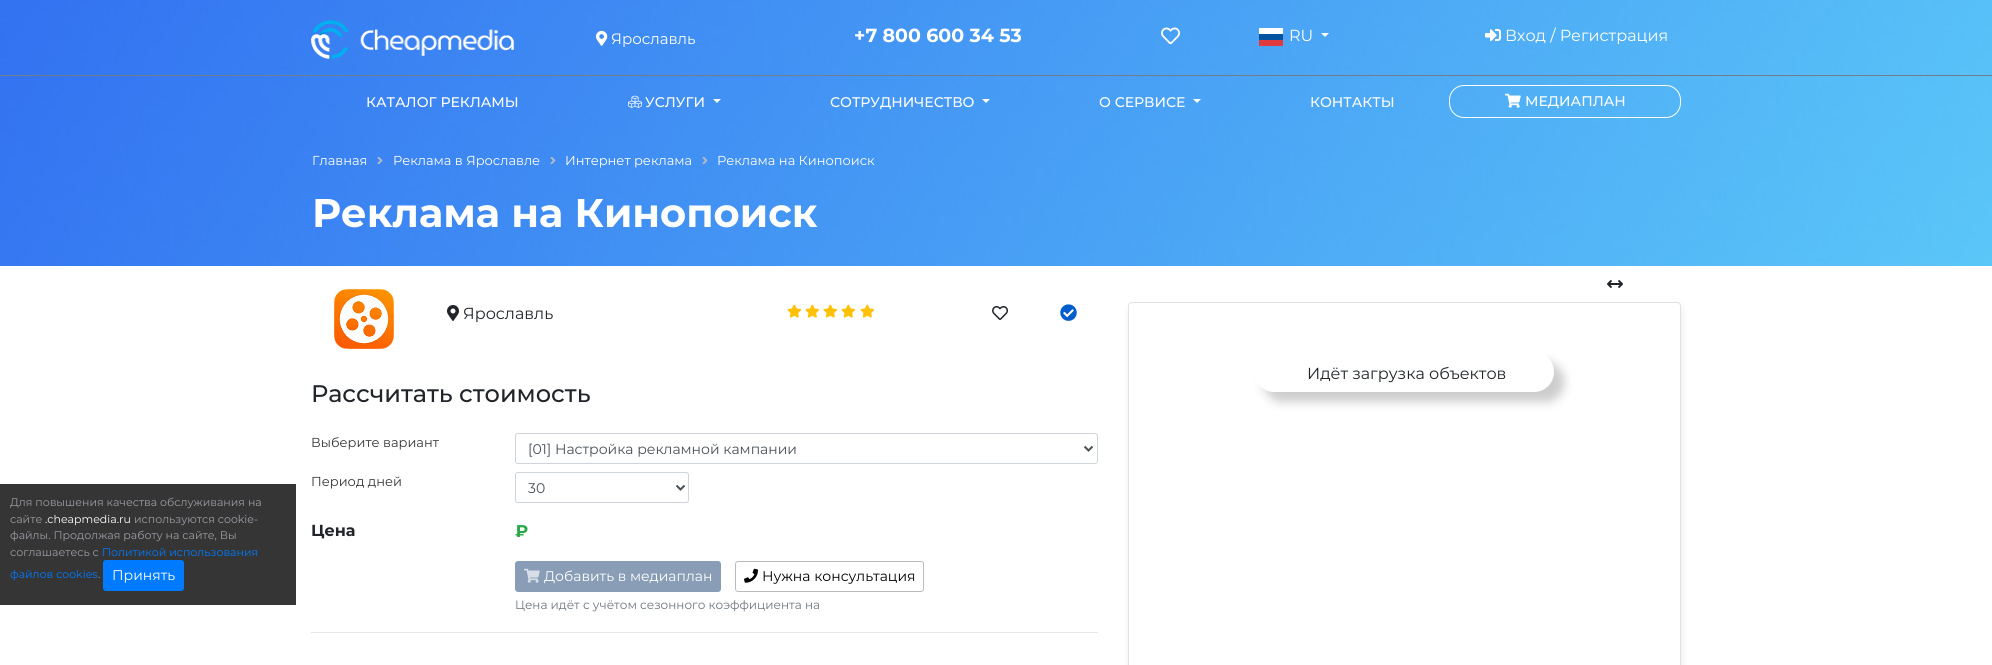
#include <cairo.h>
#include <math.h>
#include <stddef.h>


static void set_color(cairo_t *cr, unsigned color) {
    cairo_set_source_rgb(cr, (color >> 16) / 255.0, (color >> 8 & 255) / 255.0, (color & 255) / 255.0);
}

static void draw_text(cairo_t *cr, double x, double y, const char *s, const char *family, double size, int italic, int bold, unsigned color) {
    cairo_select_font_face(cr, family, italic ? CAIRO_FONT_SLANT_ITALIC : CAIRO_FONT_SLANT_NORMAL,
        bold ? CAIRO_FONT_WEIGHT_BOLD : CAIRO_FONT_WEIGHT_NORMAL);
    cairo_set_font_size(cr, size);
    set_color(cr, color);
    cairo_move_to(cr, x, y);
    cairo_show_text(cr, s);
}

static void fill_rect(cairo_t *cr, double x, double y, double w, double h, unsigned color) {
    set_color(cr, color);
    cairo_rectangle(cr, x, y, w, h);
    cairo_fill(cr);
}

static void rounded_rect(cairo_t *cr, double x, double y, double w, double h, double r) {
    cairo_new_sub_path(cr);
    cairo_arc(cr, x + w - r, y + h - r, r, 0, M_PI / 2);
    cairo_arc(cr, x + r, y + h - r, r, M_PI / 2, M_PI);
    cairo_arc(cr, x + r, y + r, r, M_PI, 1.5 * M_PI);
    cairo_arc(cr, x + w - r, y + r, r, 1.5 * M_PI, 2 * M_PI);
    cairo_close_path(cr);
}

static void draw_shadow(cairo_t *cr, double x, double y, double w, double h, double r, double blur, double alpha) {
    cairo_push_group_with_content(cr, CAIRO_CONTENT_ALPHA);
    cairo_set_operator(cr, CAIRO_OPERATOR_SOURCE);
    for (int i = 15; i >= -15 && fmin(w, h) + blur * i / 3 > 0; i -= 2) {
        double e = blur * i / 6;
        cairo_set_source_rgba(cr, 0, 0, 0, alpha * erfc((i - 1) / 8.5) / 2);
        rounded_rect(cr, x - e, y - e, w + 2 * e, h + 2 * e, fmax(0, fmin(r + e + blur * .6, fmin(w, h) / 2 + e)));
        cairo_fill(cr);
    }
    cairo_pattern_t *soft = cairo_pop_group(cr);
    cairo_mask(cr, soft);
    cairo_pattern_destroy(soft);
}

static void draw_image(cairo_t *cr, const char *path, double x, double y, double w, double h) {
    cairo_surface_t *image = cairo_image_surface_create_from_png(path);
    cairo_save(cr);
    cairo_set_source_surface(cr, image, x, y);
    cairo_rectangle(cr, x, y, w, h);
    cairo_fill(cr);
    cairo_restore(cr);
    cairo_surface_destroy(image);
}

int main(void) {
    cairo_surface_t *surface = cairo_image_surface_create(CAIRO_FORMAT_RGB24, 1992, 665);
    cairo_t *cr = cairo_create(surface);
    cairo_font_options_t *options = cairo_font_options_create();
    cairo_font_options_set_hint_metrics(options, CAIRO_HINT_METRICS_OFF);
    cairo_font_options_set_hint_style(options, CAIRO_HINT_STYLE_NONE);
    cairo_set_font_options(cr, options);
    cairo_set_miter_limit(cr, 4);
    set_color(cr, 0xFFFFFF);
    cairo_paint(cr);
    draw_image(cr, "assets/img7.png", 0, 0, 1992, 266);
    fill_rect(cr, 0, 75, 1992, 1, 0x747C89);
    draw_image(cr, "assets/img1.png", 311, 20, 203, 39);
    draw_image(cr, "assets/img2.png", 596, 30, 12, 16);
    draw_text(cr, 611, 44, "Ярославль", "Montserrat", 15, 0, 0, 0xFFFFFF);
    draw_text(cr, 854, 42, "+7 800 600 34 53", "Montserrat", 19, 0, 1, 0xFFFFFF);
    draw_image(cr, "assets/img3.png", 1161, 27, 19, 18);
    fill_rect(cr, 1259, 28, 24, 6, 0xFFFFFF);
    draw_text(cr, 1289, 41, "RU", "Montserrat", 16, 0, 0, 0xFFFFFF);
    cairo_new_path(cr);
    cairo_move_to(cr, 1321, 33);
    cairo_line_to(cr, 1329, 33);
    cairo_line_to(cr, 1325, 37);
    cairo_close_path(cr);
    cairo_fill(cr);
    fill_rect(cr, 1259, 34, 24, 6, 0x00539F);
    fill_rect(cr, 1259, 40, 24, 6, 0xE03A3E);
    draw_image(cr, "assets/img4.png", 1485, 29, 16, 13);
    draw_text(cr, 1505, 41, "Вход / Регистрация", "Montserrat", 16, 0, 0, 0xFFFFFF);
    draw_text(cr, 366, 107, "КАТАЛОГ РЕКЛАМЫ", "Montserrat Medium", 14, 0, 0, 0xFFFFFF);
    draw_image(cr, "assets/img5.png", 628, 95, 14, 13);
    draw_text(cr, 645, 107, "УСЛУГИ", "Montserrat Medium", 14, 0, 0, 0xFFFFFF);
    cairo_new_path(cr);
    cairo_move_to(cr, 713, 99);
    cairo_line_to(cr, 721, 99);
    cairo_line_to(cr, 717, 103);
    cairo_close_path(cr);
    cairo_fill(cr);
    draw_text(cr, 830, 107, "СОТРУДНИЧЕСТВО", "Montserrat Medium", 14, 0, 0, 0xFFFFFF);
    cairo_new_path(cr);
    cairo_move_to(cr, 982, 99);
    cairo_line_to(cr, 990, 99);
    cairo_line_to(cr, 986, 103);
    cairo_close_path(cr);
    cairo_fill(cr);
    draw_text(cr, 1099, 107, "О СЕРВИСЕ", "Montserrat Medium", 14, 0, 0, 0xFFFFFF);
    cairo_new_path(cr);
    cairo_move_to(cr, 1193, 99);
    cairo_line_to(cr, 1201, 99);
    cairo_line_to(cr, 1197, 103);
    cairo_close_path(cr);
    cairo_fill(cr);
    draw_text(cr, 1310, 107, "КОНТАКТЫ", "Montserrat Medium", 14, 0, 0, 0xFFFFFF);
    rounded_rect(cr, 1449.5, 85.5, 231, 32, 14.5);
    cairo_set_line_width(cr, 1);
    cairo_stroke(cr);
    draw_image(cr, "assets/img6.png", 1505, 93, 16, 15);
    draw_text(cr, 1525, 106, "МЕДИАПЛАН", "Montserrat Medium", 14, 0, 0, 0xFFFFFF);
    draw_text(cr, 312, 165, "Главная", "Montserrat", 13, 0, 0, 0xFFFFFF);
    draw_image(cr, "assets/img8.png", 377, 156, 6, 9);
    draw_text(cr, 393, 165, "Реклама в Ярославле", "Montserrat", 13, 0, 0, 0xFFFFFF);
    draw_image(cr, "assets/img9.png", 550, 156, 6, 9);
    draw_text(cr, 565, 165, "Интернет реклама", "Montserrat", 13, 0, 0, 0xFFFFFF);
    draw_image(cr, "assets/img10.png", 702, 156, 6, 9);
    draw_text(cr, 717, 165, "Реклама на Кинопоиск", "Montserrat", 13, 0, 0, 0xFFFFFF);
    draw_text(cr, 312, 227, "Реклама на Кинопоиск", "Montserrat", 40, 0, 1, 0xFFFFFF);
    fill_rect(cr, 0, 484, 296, 121, 0x353535);
    draw_text(cr, 10, 506, "Для повышения качества обслуживания на", "Montserrat", 11, 0, 0, 0x9A9DA4);
    draw_text(cr, 10, 523, "сайте", "Montserrat", 11, 0, 0, 0x9A9DA4);
    draw_text(cr, 45, 523, ".cheapmedia.ru", "Montserrat", 11, 0, 0, 0xFFFFFF);
    draw_text(cr, 134, 523, "используются cookie-", "Montserrat", 11, 0, 0, 0x9A9DA4);
    draw_text(cr, 10, 539, "файлы. Продолжая работу на сайте, Вы", "Montserrat", 11, 0, 0, 0x9A9DA4);
    draw_text(cr, 10, 556, "соглашаетесь с", "Montserrat", 11, 0, 0, 0x9A9DA4);
    draw_text(cr, 102, 556, "Политикой использования", "Montserrat", 11, 0, 0, 0x007BFF);
    draw_text(cr, 10, 578, "файлов cookies", "Montserrat", 11, 0, 0, 0x007BFF);
    draw_text(cr, 98, 578, ".", "Montserrat", 11, 0, 0, 0x9A9DA4);
    set_color(cr, 0x007BFF);
    rounded_rect(cr, 103.5, 560.5, 80, 30, 2.5);
    cairo_fill_preserve(cr);
    cairo_stroke(cr);
    draw_text(cr, 112, 580, "Принять", "Montserrat", 14, 0, 0, 0xFFFFFF);
    draw_image(cr, "assets/img11.png", 1607, 280, 16, 8);
    draw_image(cr, "assets/img12.png", 334, 289, 60, 60);
    draw_image(cr, "assets/img13.png", 447, 305, 12, 16);
    draw_text(cr, 463, 319, "Ярославль", "Montserrat", 16, 0, 0, 0x212529);
    draw_image(cr, "assets/img14.png", 787, 304, 15, 14);
    draw_image(cr, "assets/img14.png", 805, 304, 15, 14);
    draw_image(cr, "assets/img14.png", 823, 304, 15, 14);
    draw_image(cr, "assets/img14.png", 841, 304, 15, 14);
    draw_image(cr, "assets/img14.png", 860, 304, 15, 14);
    draw_image(cr, "assets/img15.png", 992, 306, 16, 14);
    draw_image(cr, "assets/img16.png", 1060, 304, 17, 17);
    draw_text(cr, 311, 402, "Рассчитать стоимость", "Montserrat Medium", 24, 0, 0, 0x212529);
    draw_text(cr, 311, 447, "Выберите вариант", "Montserrat", 13, 0, 0, 0x363636);
    rounded_rect(cr, 515.5, 433.5, 582, 30, 2.5);
    set_color(cr, 0xCED4DA);
    cairo_stroke(cr);
    cairo_new_path(cr);
    cairo_move_to(cr, 1084.5, 446.5);
    cairo_line_to(cr, 1088.5, 450.5);
    cairo_line_to(cr, 1092.5, 446.5);
    set_color(cr, 0x495057);
    cairo_set_line_width(cr, 2);
    cairo_stroke(cr);
    draw_text(cr, 528, 454, "[01] Настройка рекламной кампании", "Montserrat", 14, 0, 0, 0x495057);
    draw_text(cr, 311, 486, "Период дней", "Montserrat", 13, 0, 0, 0x363636);
    rounded_rect(cr, 515.5, 472.5, 173, 30, 2.5);
    set_color(cr, 0xCED4DA);
    cairo_set_line_width(cr, 1);
    cairo_stroke(cr);
    cairo_new_path(cr);
    cairo_move_to(cr, 676.5, 485.5);
    cairo_line_to(cr, 680.5, 489.5);
    cairo_line_to(cr, 684.5, 485.5);
    set_color(cr, 0x495057);
    cairo_set_line_width(cr, 2);
    cairo_stroke(cr);
    draw_text(cr, 528, 493, "30", "Montserrat", 14, 0, 0, 0x495057);
    draw_text(cr, 311, 536, "Цена", "Montserrat", 16, 0, 1, 0x212529);
    draw_text(cr, 515, 537, "₽", "Montserrat", 17, 0, 1, 0x28A745);
    set_color(cr, 0x899EB6);
    rounded_rect(cr, 515, 561, 206, 31, 3);
    cairo_fill(cr);
    draw_image(cr, "assets/img17.png", 524, 568, 16, 15);
    draw_text(cr, 544, 581, "Добавить в медиаплан", "Montserrat", 14, 0, 0, 0xFFFFFF);
    rounded_rect(cr, 735.5, 561.5, 188, 30, 2.5);
    set_color(cr, 0xBBBBBB);
    cairo_set_line_width(cr, 1);
    cairo_stroke(cr);
    draw_image(cr, "assets/img18.png", 744, 568, 14, 15);
    draw_text(cr, 762, 581, "Нужна консультация", "Montserrat", 14, 0, 0, 0x000000);
    draw_text(cr, 515, 609, "Цена идёт с учётом сезонного коэффициента на", "Montserrat", 12, 0, 0, 0x6C757D);
    fill_rect(cr, 311, 632, 787, 1, 0xE6E6E6);
    cairo_save(cr);
    cairo_set_fill_rule(cr, CAIRO_FILL_RULE_EVEN_ODD);
    cairo_new_path(cr);
    cairo_move_to(cr, 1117, 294);
    cairo_line_to(cr, 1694, 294);
    cairo_line_to(cr, 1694, 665);
    cairo_line_to(cr, 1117, 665);
    cairo_close_path(cr);
    cairo_move_to(cr, 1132, 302);
    cairo_line_to(cr, 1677, 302);
    cairo_curve_to(cr, 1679, 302, 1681, 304, 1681, 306);
    cairo_line_to(cr, 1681, 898);
    cairo_curve_to(cr, 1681, 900, 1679, 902, 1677, 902);
    cairo_line_to(cr, 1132, 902);
    cairo_curve_to(cr, 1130, 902, 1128, 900, 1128, 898);
    cairo_line_to(cr, 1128, 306);
    cairo_curve_to(cr, 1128, 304, 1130, 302, 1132, 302);
    cairo_close_path(cr);
    cairo_clip(cr);
    set_color(cr, 0x323232);
    draw_shadow(cr, 1129, 306, 553, 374, 4, 3.5, 0.1);
    cairo_restore(cr);
    rounded_rect(cr, 1128.5, 302.5, 552, 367, 3.5);
    set_color(cr, 0xDEE2E6);
    cairo_stroke(cr);
    set_color(cr, 0x000000);
    draw_shadow(cr, 1264, 362, 300, 40, 20, 5, 0.2);
    set_color(cr, 0xFFFFFF);
    rounded_rect(cr, 1254, 352, 300, 40, 20);
    cairo_fill(cr);
    draw_text(cr, 1307, 379, "Идёт загрузка объектов", "Montserrat", 16, 0, 0, 0x212529);
    cairo_surface_write_to_png(surface, "output.png");
    cairo_font_options_destroy(options);
    cairo_destroy(cr);
    cairo_surface_destroy(surface);
    return 0;
}
